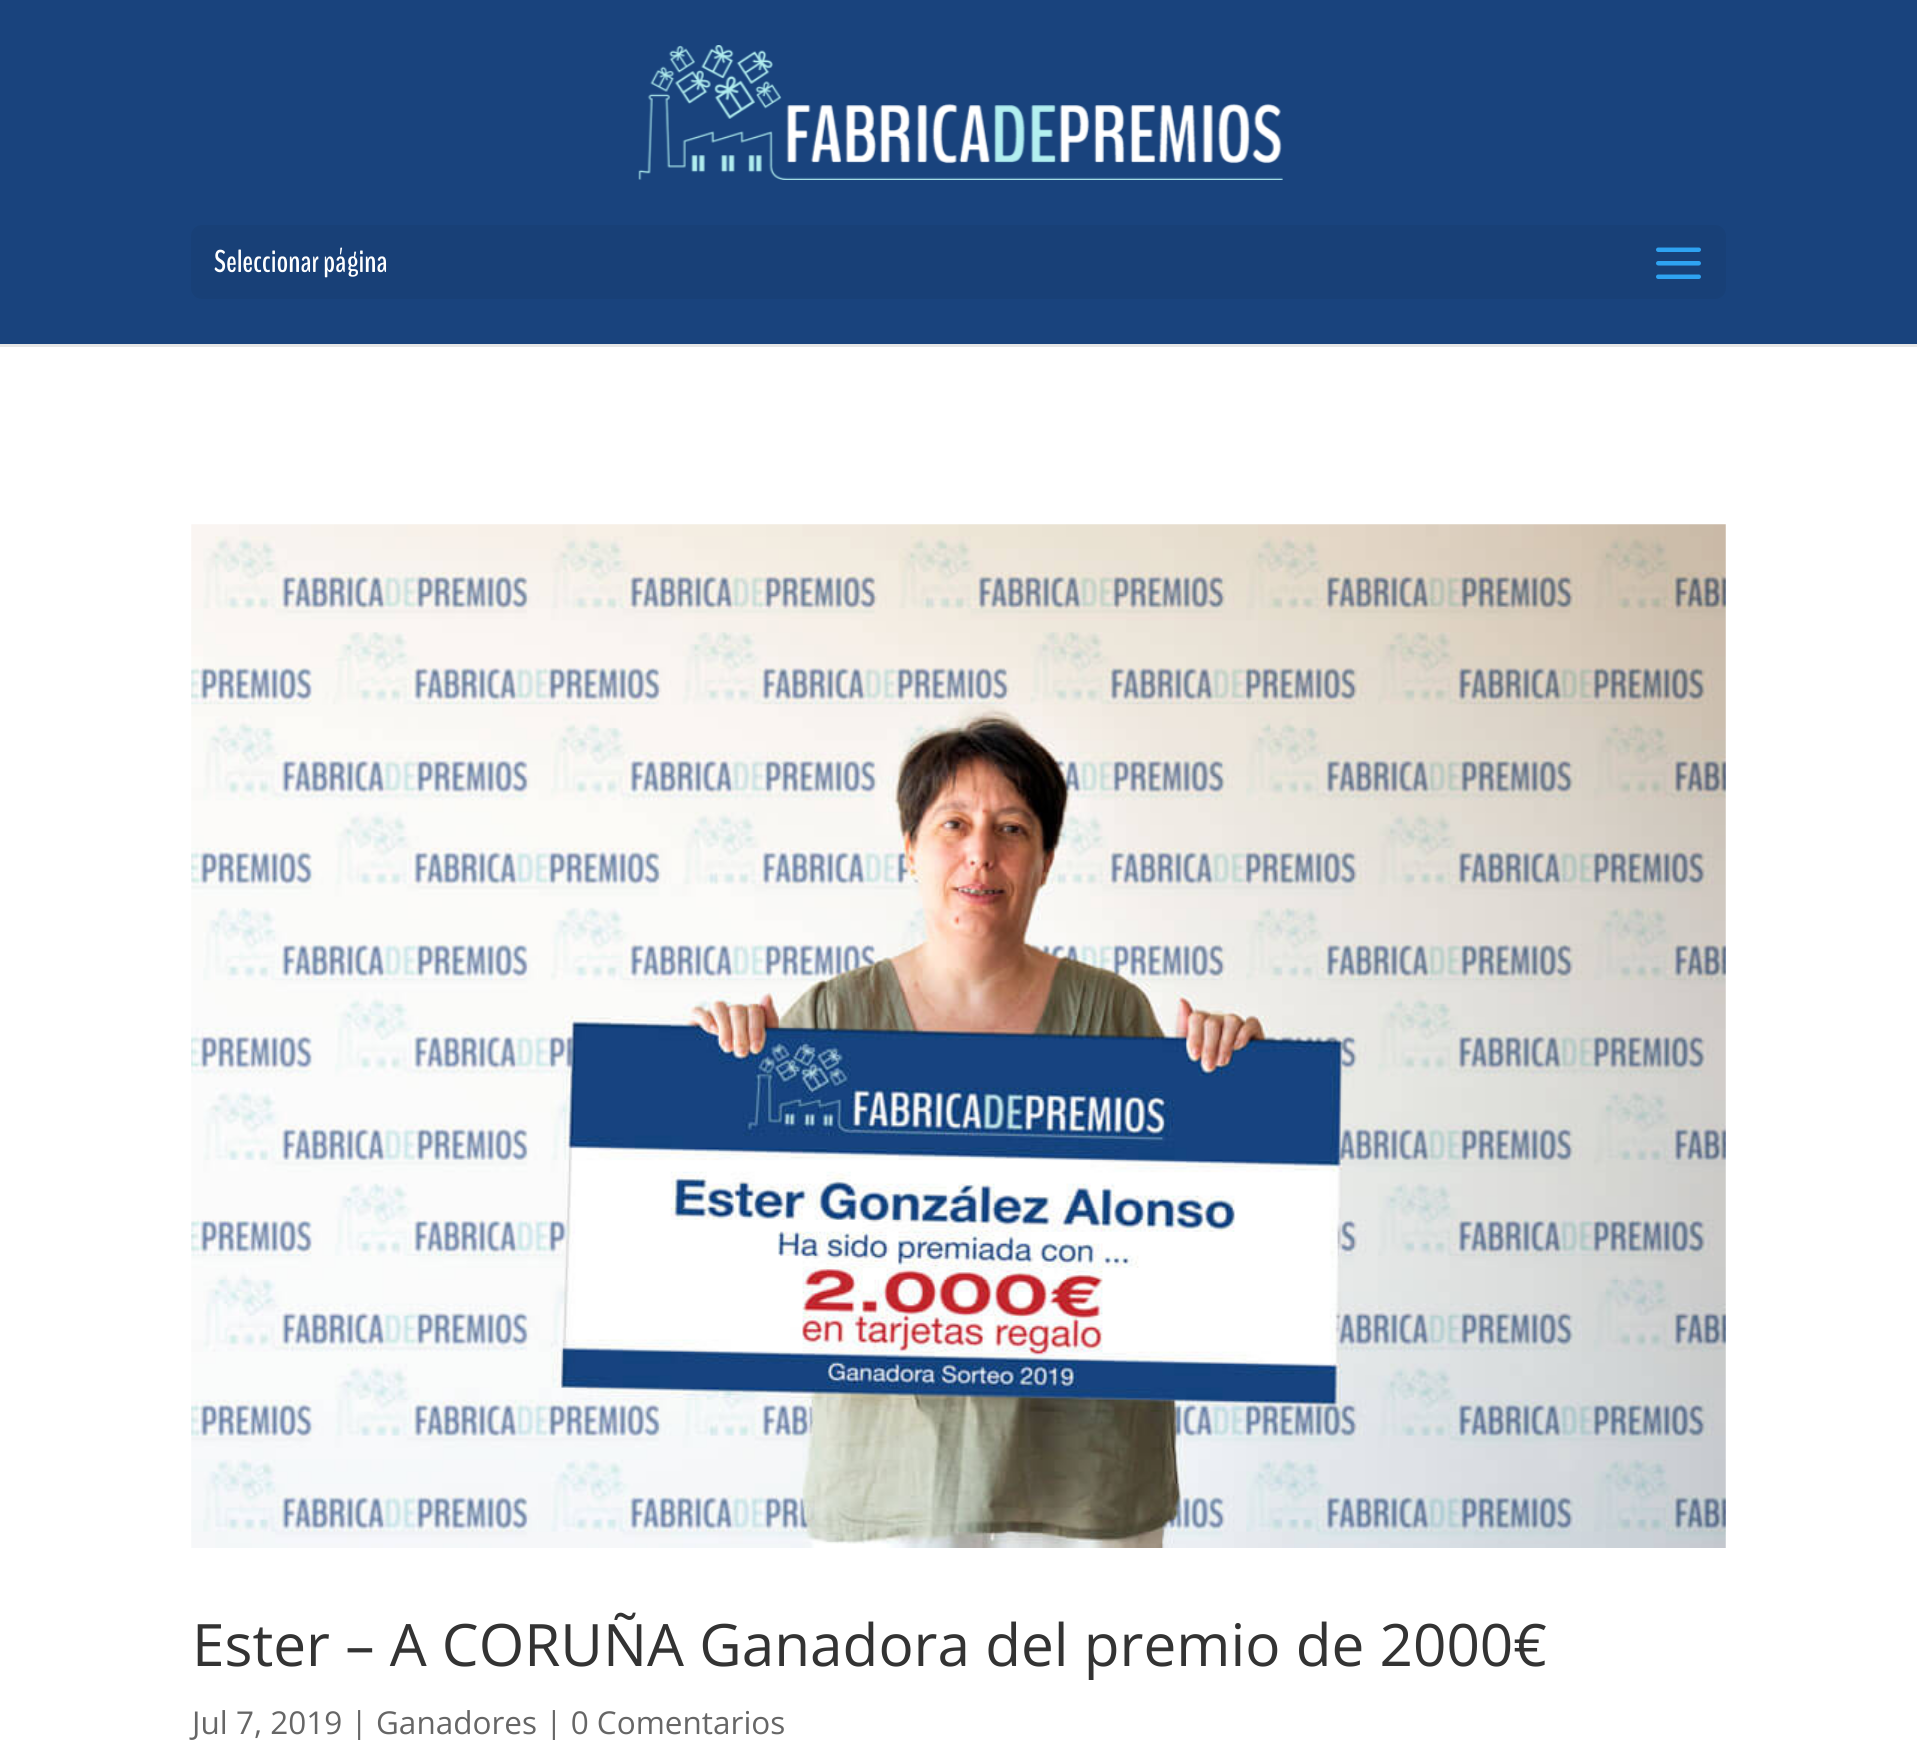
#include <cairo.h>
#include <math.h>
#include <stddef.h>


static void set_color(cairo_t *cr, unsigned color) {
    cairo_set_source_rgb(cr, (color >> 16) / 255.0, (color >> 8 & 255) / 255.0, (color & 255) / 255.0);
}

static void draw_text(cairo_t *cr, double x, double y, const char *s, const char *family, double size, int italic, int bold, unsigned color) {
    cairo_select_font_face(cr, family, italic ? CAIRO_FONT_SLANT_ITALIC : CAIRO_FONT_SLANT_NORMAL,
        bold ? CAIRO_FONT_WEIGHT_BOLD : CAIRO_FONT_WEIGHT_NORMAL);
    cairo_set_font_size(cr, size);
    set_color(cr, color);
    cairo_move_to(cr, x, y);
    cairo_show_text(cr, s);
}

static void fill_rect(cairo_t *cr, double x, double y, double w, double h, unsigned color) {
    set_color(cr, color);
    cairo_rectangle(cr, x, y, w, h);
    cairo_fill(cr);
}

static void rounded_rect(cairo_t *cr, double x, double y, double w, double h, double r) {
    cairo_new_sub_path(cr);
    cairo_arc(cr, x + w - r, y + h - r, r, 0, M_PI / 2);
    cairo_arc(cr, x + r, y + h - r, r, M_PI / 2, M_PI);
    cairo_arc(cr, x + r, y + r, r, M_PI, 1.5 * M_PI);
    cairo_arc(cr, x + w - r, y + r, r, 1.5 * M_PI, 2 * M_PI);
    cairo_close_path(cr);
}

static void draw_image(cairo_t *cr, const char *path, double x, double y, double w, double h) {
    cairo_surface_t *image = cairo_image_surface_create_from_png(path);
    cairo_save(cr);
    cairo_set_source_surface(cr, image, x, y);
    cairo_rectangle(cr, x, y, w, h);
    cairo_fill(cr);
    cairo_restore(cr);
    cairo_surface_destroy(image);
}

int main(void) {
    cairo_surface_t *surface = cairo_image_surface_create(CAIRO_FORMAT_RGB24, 1917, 1740);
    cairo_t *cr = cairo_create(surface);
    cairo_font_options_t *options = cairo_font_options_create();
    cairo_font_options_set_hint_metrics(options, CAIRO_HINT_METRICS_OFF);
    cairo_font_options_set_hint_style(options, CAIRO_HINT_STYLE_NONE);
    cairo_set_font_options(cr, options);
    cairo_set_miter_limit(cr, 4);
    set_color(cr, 0xFFFFFF);
    cairo_paint(cr);
    fill_rect(cr, 0, 344, 1917, 3, 0xE6E6E6);
    fill_rect(cr, 0, 0, 1917, 344, 0x19437D);
    draw_image(cr, "assets/img1.png", 638, 45, 645, 135);
    set_color(cr, 0x184077);
    rounded_rect(cr, 191, 225, 1535, 74, 11);
    cairo_fill(cr);
    draw_text(cr, 214, 272, "Seleccionar página", "BenchNine", 31.5, 0, 1, 0xFFFFFF);
    draw_image(cr, "assets/img2.png", 1656, 247, 45, 32);
    draw_image(cr, "assets/img3.png", 191, 524, 1535, 1024);
    draw_text(cr, 192, 1666, "Ester – A CORUÑA Ganadora del premio de 2000€", "Open Sans", 58.5, 0, 0, 0x333333);
    draw_text(cr, 192, 1734, "Jul 7, 2019 | Ganadores | 0 Comentarios", "Open Sans", 31.5, 0, 0, 0x666666);
    cairo_surface_write_to_png(surface, "output.png");
    cairo_font_options_destroy(options);
    cairo_destroy(cr);
    cairo_surface_destroy(surface);
    return 0;
}
